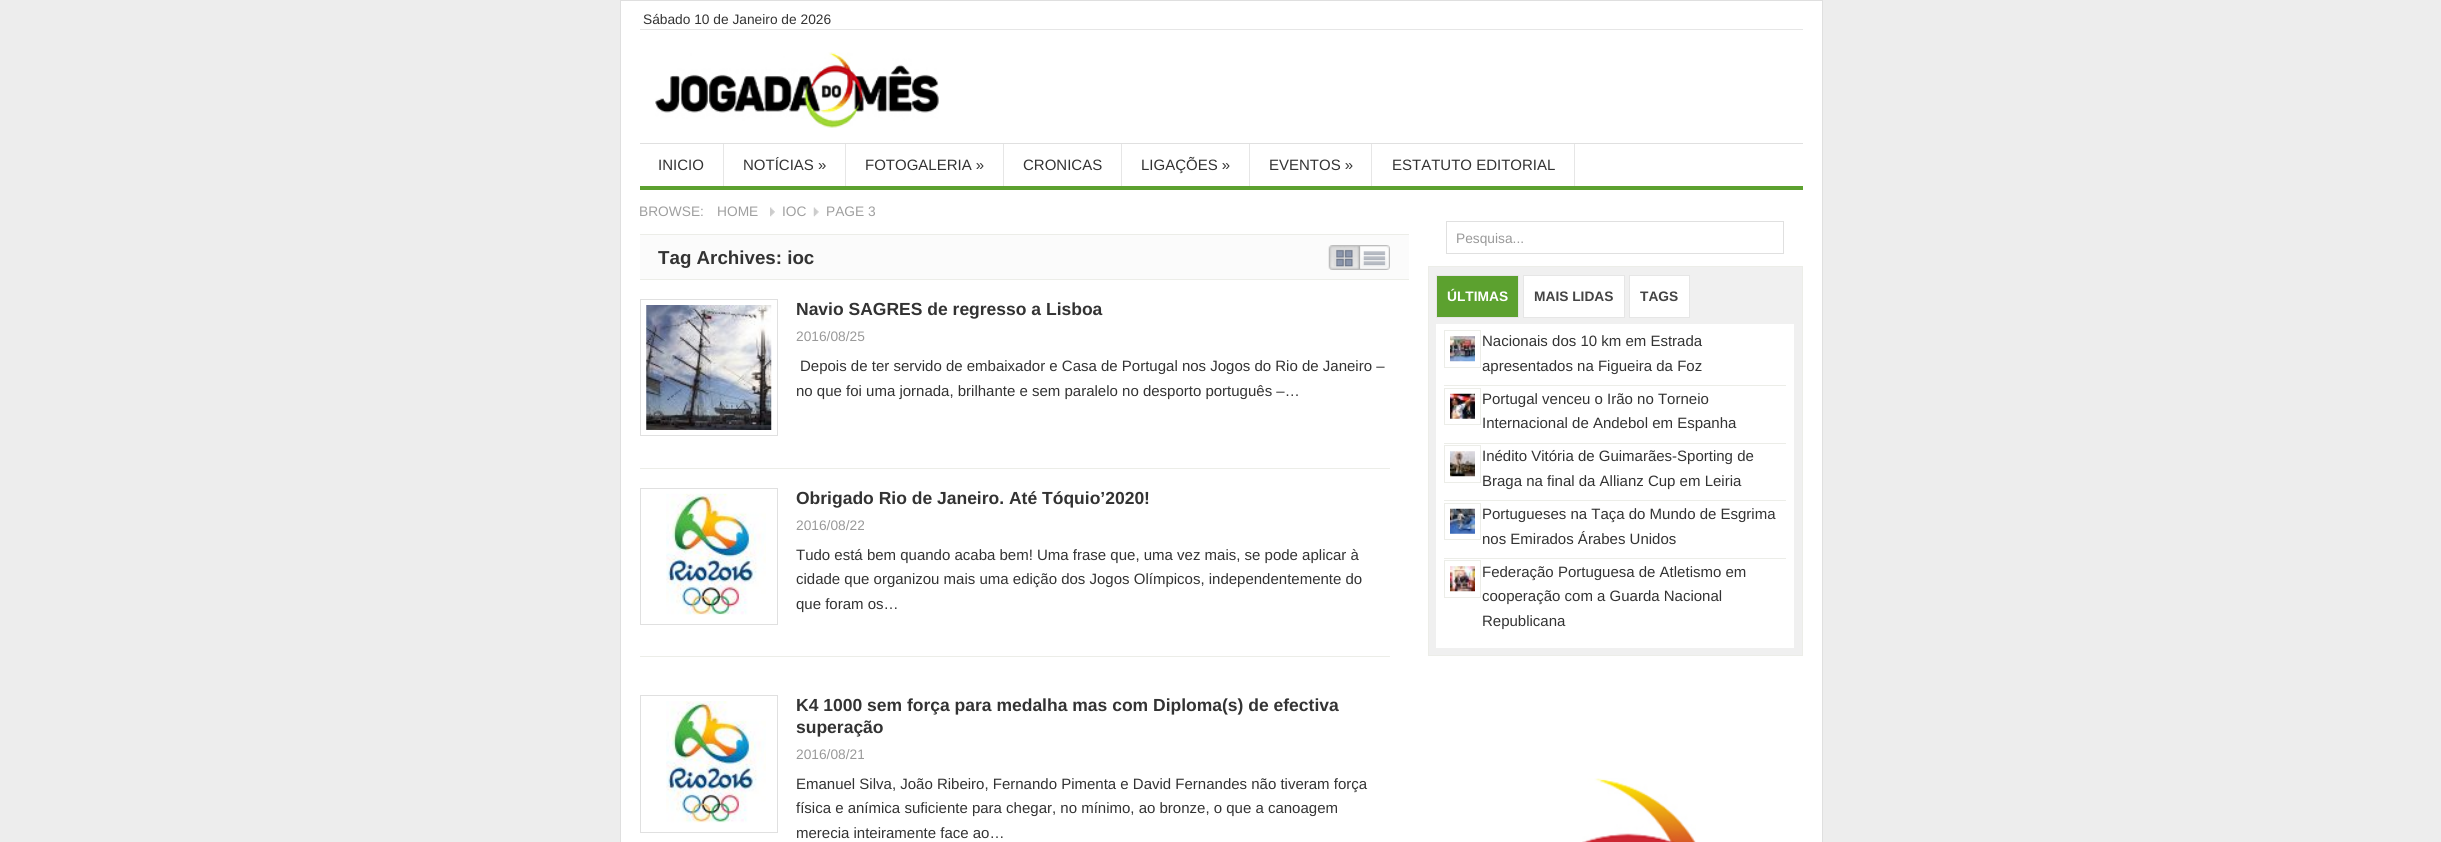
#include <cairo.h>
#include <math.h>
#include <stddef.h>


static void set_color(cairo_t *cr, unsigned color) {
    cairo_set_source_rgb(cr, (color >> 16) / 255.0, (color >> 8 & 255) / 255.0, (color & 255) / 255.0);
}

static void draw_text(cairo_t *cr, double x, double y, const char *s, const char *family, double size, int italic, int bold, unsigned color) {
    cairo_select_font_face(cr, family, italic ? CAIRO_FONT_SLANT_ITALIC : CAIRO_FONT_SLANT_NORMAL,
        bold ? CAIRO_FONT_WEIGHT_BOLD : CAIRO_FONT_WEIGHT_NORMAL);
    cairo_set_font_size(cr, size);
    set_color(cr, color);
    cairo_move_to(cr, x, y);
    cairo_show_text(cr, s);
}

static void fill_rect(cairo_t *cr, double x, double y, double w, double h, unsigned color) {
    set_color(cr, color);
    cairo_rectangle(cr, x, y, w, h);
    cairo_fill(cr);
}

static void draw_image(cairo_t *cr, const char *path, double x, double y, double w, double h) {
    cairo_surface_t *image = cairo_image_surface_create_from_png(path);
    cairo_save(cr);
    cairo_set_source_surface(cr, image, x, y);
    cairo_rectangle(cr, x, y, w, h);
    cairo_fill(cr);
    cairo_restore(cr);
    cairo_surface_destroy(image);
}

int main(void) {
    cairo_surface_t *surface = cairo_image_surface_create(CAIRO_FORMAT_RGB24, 2441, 842);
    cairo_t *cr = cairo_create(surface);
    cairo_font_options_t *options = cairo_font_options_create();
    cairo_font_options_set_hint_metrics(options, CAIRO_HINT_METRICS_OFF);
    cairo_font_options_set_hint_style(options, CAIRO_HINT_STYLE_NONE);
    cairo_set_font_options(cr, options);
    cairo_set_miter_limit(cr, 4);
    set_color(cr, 0xEDEDED);
    cairo_paint(cr);
    set_color(cr, 0xFFFFFF);
    cairo_rectangle(cr, 620.5, 0.5, 1202, 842);
    cairo_fill_preserve(cr);
    set_color(cr, 0xDFDFDF);
    cairo_set_line_width(cr, 1);
    cairo_stroke(cr);
    fill_rect(cr, 640, 29, 1163, 1, 0xE6E6E6);
    draw_text(cr, 643, 24, "Sábado 10 de Janeiro de 2026", "Liberation Sans", 13.75, 0, 0, 0x333333);
    draw_image(cr, "assets/img1.png", 655, 52, 284, 76);
    fill_rect(cr, 640, 143, 1163, 1, 0xE0E0E0);
    fill_rect(cr, 640, 186, 1163, 4, 0x5CA12F);
    fill_rect(cr, 723, 144, 1, 42, 0xE6E6E6);
    draw_text(cr, 658, 170, "INICIO", "Liberation Sans", 15, 0, 0, 0x333333);
    fill_rect(cr, 845, 144, 1, 42, 0xE6E6E6);
    draw_text(cr, 743, 170, "NOTÍCIAS »", "Liberation Sans", 15, 0, 0, 0x333333);
    fill_rect(cr, 1003, 144, 1, 42, 0xE6E6E6);
    draw_text(cr, 865, 170, "FOTOGALERIA »", "Liberation Sans", 15, 0, 0, 0x333333);
    fill_rect(cr, 1121, 144, 1, 42, 0xE6E6E6);
    draw_text(cr, 1023, 170, "CRONICAS", "Liberation Sans", 15, 0, 0, 0x333333);
    fill_rect(cr, 1249, 144, 1, 42, 0xE6E6E6);
    draw_text(cr, 1141, 170, "LIGAÇÕES »", "Liberation Sans", 15, 0, 0, 0x333333);
    fill_rect(cr, 1371, 144, 1, 42, 0xE6E6E6);
    draw_text(cr, 1269, 170, "EVENTOS »", "Liberation Sans", 15, 0, 0, 0x333333);
    fill_rect(cr, 1574, 144, 1, 42, 0xE6E6E6);
    draw_text(cr, 1392, 170, "ESTATUTO EDITORIAL", "Liberation Sans", 15, 0, 0, 0x333333);
    fill_rect(cr, 640, 234, 769, 1, 0xECEDE8);
    draw_text(cr, 639, 216, "BROWSE:", "Liberation Sans", 13.75, 0, 0, 0x9F9F9F);
    draw_text(cr, 717, 216, "HOME", "Liberation Sans", 13.75, 0, 0, 0x9F9F9F);
    draw_image(cr, "assets/img2.png", 770, 207, 5, 10);
    draw_text(cr, 782, 216, "IOC", "Liberation Sans", 13.75, 0, 0, 0x9F9F9F);
    draw_image(cr, "assets/img3.png", 813, 207, 6, 10);
    draw_text(cr, 826, 216, "PAGE 3", "Liberation Sans", 13.75, 0, 0, 0x9F9F9F);
    fill_rect(cr, 640, 235, 769, 44, 0xFBFBFB);
    fill_rect(cr, 640, 279, 769, 1, 0xECEDE8);
    draw_text(cr, 658, 264, "Tag Archives: ioc", "Liberation Sans", 18.75, 0, 1, 0x333333);
    draw_image(cr, "assets/img4.png", 1328, 245, 62, 25);
    fill_rect(cr, 640, 468, 750, 1, 0xECEDE8);
    cairo_rectangle(cr, 640.5, 299.5, 137, 136);
    set_color(cr, 0xE0E0E0);
    cairo_stroke(cr);
    draw_image(cr, "assets/img5.png", 646, 305, 126, 125);
    draw_text(cr, 796, 315, "Navio SAGRES de regresso a Lisboa", "Liberation Sans", 17.5, 0, 1, 0x333333);
    draw_text(cr, 796, 341, "2016/08/25", "Liberation Sans", 13.75, 0, 0, 0x999999);
    draw_text(cr, 800, 371, "Depois de ter servido de embaixador e Casa de Portugal nos Jogos do Rio de Janeiro –", "Liberation Sans", 15, 0, 0, 0x333333);
    draw_text(cr, 796, 396, "no que foi uma jornada, brilhante e sem paralelo no desporto português –…", "Liberation Sans", 15, 0, 0, 0x333333);
    fill_rect(cr, 640, 656, 750, 1, 0xECEDE8);
    cairo_rectangle(cr, 640.5, 488.5, 137, 136);
    set_color(cr, 0xE0E0E0);
    cairo_stroke(cr);
    draw_image(cr, "assets/img6.png", 666, 493, 100, 122);
    draw_text(cr, 796, 504, "Obrigado Rio de Janeiro. Até Tóquio’2020!", "Liberation Sans", 17.5, 0, 1, 0x333333);
    draw_text(cr, 796, 530, "2016/08/22", "Liberation Sans", 13.75, 0, 0, 0x999999);
    draw_text(cr, 796, 560, "Tudo está bem quando acaba bem! Uma frase que, uma vez mais, se pode aplicar à", "Liberation Sans", 15, 0, 0, 0x333333);
    draw_text(cr, 796, 584, "cidade que organizou mais uma edição dos Jogos Olímpicos, independentemente do", "Liberation Sans", 15, 0, 0, 0x333333);
    draw_text(cr, 796, 609, "que foram os…", "Liberation Sans", 15, 0, 0, 0x333333);
    cairo_rectangle(cr, 640.5, 695.5, 137, 137);
    set_color(cr, 0xE0E0E0);
    cairo_stroke(cr);
    draw_image(cr, "assets/img7.png", 666, 701, 100, 122);
    draw_text(cr, 796, 711, "K4 1000 sem força para medalha mas com Diploma(s) de efectiva", "Liberation Sans", 17.5, 0, 1, 0x333333);
    draw_text(cr, 796, 733, "superação", "Liberation Sans", 17.5, 0, 1, 0x333333);
    draw_text(cr, 796, 759, "2016/08/21", "Liberation Sans", 13.75, 0, 0, 0x999999);
    draw_text(cr, 796, 789, "Emanuel Silva, João Ribeiro, Fernando Pimenta e David Fernandes não tiveram força", "Liberation Sans", 15, 0, 0, 0x333333);
    draw_text(cr, 796, 813, "física e anímica suficiente para chegar, no mínimo, ao bronze, o que a canoagem", "Liberation Sans", 15, 0, 0, 0x333333);
    draw_text(cr, 796, 838, "merecia inteiramente face ao…", "Liberation Sans", 15, 0, 0, 0x333333);
    cairo_rectangle(cr, 1446.5, 221.5, 337, 32);
    set_color(cr, 0xE0E0E0);
    cairo_stroke(cr);
    draw_text(cr, 1456, 243, "Pesquisa...", "Liberation Sans", 13.75, 0, 0, 0x999999);
    set_color(cr, 0xF0F0F0);
    cairo_rectangle(cr, 1428.5, 266.5, 374, 389);
    cairo_fill_preserve(cr);
    set_color(cr, 0xECEDE8);
    cairo_stroke(cr);
    set_color(cr, 0x5CA12F);
    cairo_rectangle(cr, 1436.5, 275.5, 82, 42);
    cairo_fill_preserve(cr);
    set_color(cr, 0xE6E6E6);
    cairo_stroke(cr);
    draw_text(cr, 1447, 301, "ÚLTIMAS", "Liberation Sans", 13.75, 0, 1, 0xFFFFFF);
    cairo_rectangle(cr, 1523.5, 275.5, 101, 42);
    cairo_fill_preserve(cr);
    set_color(cr, 0xE6E6E6);
    cairo_stroke(cr);
    draw_text(cr, 1534, 301, "MAIS LIDAS", "Liberation Sans", 13.75, 0, 1, 0x444444);
    set_color(cr, 0xFFFFFF);
    cairo_rectangle(cr, 1629.5, 275.5, 60, 42);
    cairo_fill_preserve(cr);
    set_color(cr, 0xE6E6E6);
    cairo_stroke(cr);
    draw_text(cr, 1640, 301, "TAGS", "Liberation Sans", 13.75, 0, 1, 0x444444);
    fill_rect(cr, 1436, 324, 358, 324, 0xFFFFFF);
    cairo_rectangle(cr, 1444.5, 330.5, 36, 37);
    set_color(cr, 0xECEDE8);
    cairo_stroke(cr);
    draw_image(cr, "assets/img8.png", 1450, 336, 25, 26);
    draw_text(cr, 1482, 346, "Nacionais dos 10 km em Estrada", "Liberation Sans", 15, 0, 0, 0x333333);
    draw_text(cr, 1482, 371, "apresentados na Figueira da Foz", "Liberation Sans", 15, 0, 0, 0x333333);
    fill_rect(cr, 1444, 385, 342, 1, 0xECEDE8);
    cairo_rectangle(cr, 1444.5, 388.5, 36, 36);
    cairo_stroke(cr);
    draw_image(cr, "assets/img9.png", 1450, 393, 25, 26);
    draw_text(cr, 1482, 404, "Portugal venceu o Irão no Torneio", "Liberation Sans", 15, 0, 0, 0x333333);
    draw_text(cr, 1482, 428, "Internacional de Andebol em Espanha", "Liberation Sans", 15, 0, 0, 0x333333);
    fill_rect(cr, 1444, 443, 342, 1, 0xECEDE8);
    cairo_rectangle(cr, 1444.5, 445.5, 36, 37);
    cairo_stroke(cr);
    draw_image(cr, "assets/img10.png", 1450, 451, 25, 26);
    draw_text(cr, 1482, 461, "Inédito Vitória de Guimarães-Sporting de", "Liberation Sans", 15, 0, 0, 0x333333);
    draw_text(cr, 1482, 486, "Braga na final da Allianz Cup em Leiria", "Liberation Sans", 15, 0, 0, 0x333333);
    fill_rect(cr, 1444, 500, 342, 1, 0xECEDE8);
    cairo_rectangle(cr, 1444.5, 503.5, 36, 36);
    cairo_stroke(cr);
    draw_image(cr, "assets/img11.png", 1450, 508, 25, 26);
    draw_text(cr, 1482, 519, "Portugueses na Taça do Mundo de Esgrima", "Liberation Sans", 15, 0, 0, 0x333333);
    draw_text(cr, 1482, 544, "nos Emirados Árabes Unidos", "Liberation Sans", 15, 0, 0, 0x333333);
    fill_rect(cr, 1444, 558, 342, 1, 0xECEDE8);
    cairo_rectangle(cr, 1444.5, 560.5, 36, 37);
    cairo_stroke(cr);
    draw_image(cr, "assets/img12.png", 1450, 566, 25, 26);
    draw_text(cr, 1482, 577, "Federação Portuguesa de Atletismo em", "Liberation Sans", 15, 0, 0, 0x333333);
    draw_text(cr, 1482, 601, "cooperação com a Guarda Nacional", "Liberation Sans", 15, 0, 0, 0x333333);
    draw_text(cr, 1482, 626, "Republicana", "Liberation Sans", 15, 0, 0, 0x333333);
    draw_image(cr, "assets/img13.png", 1582, 778, 114, 64);
    cairo_surface_write_to_png(surface, "output.png");
    cairo_font_options_destroy(options);
    cairo_destroy(cr);
    cairo_surface_destroy(surface);
    return 0;
}
